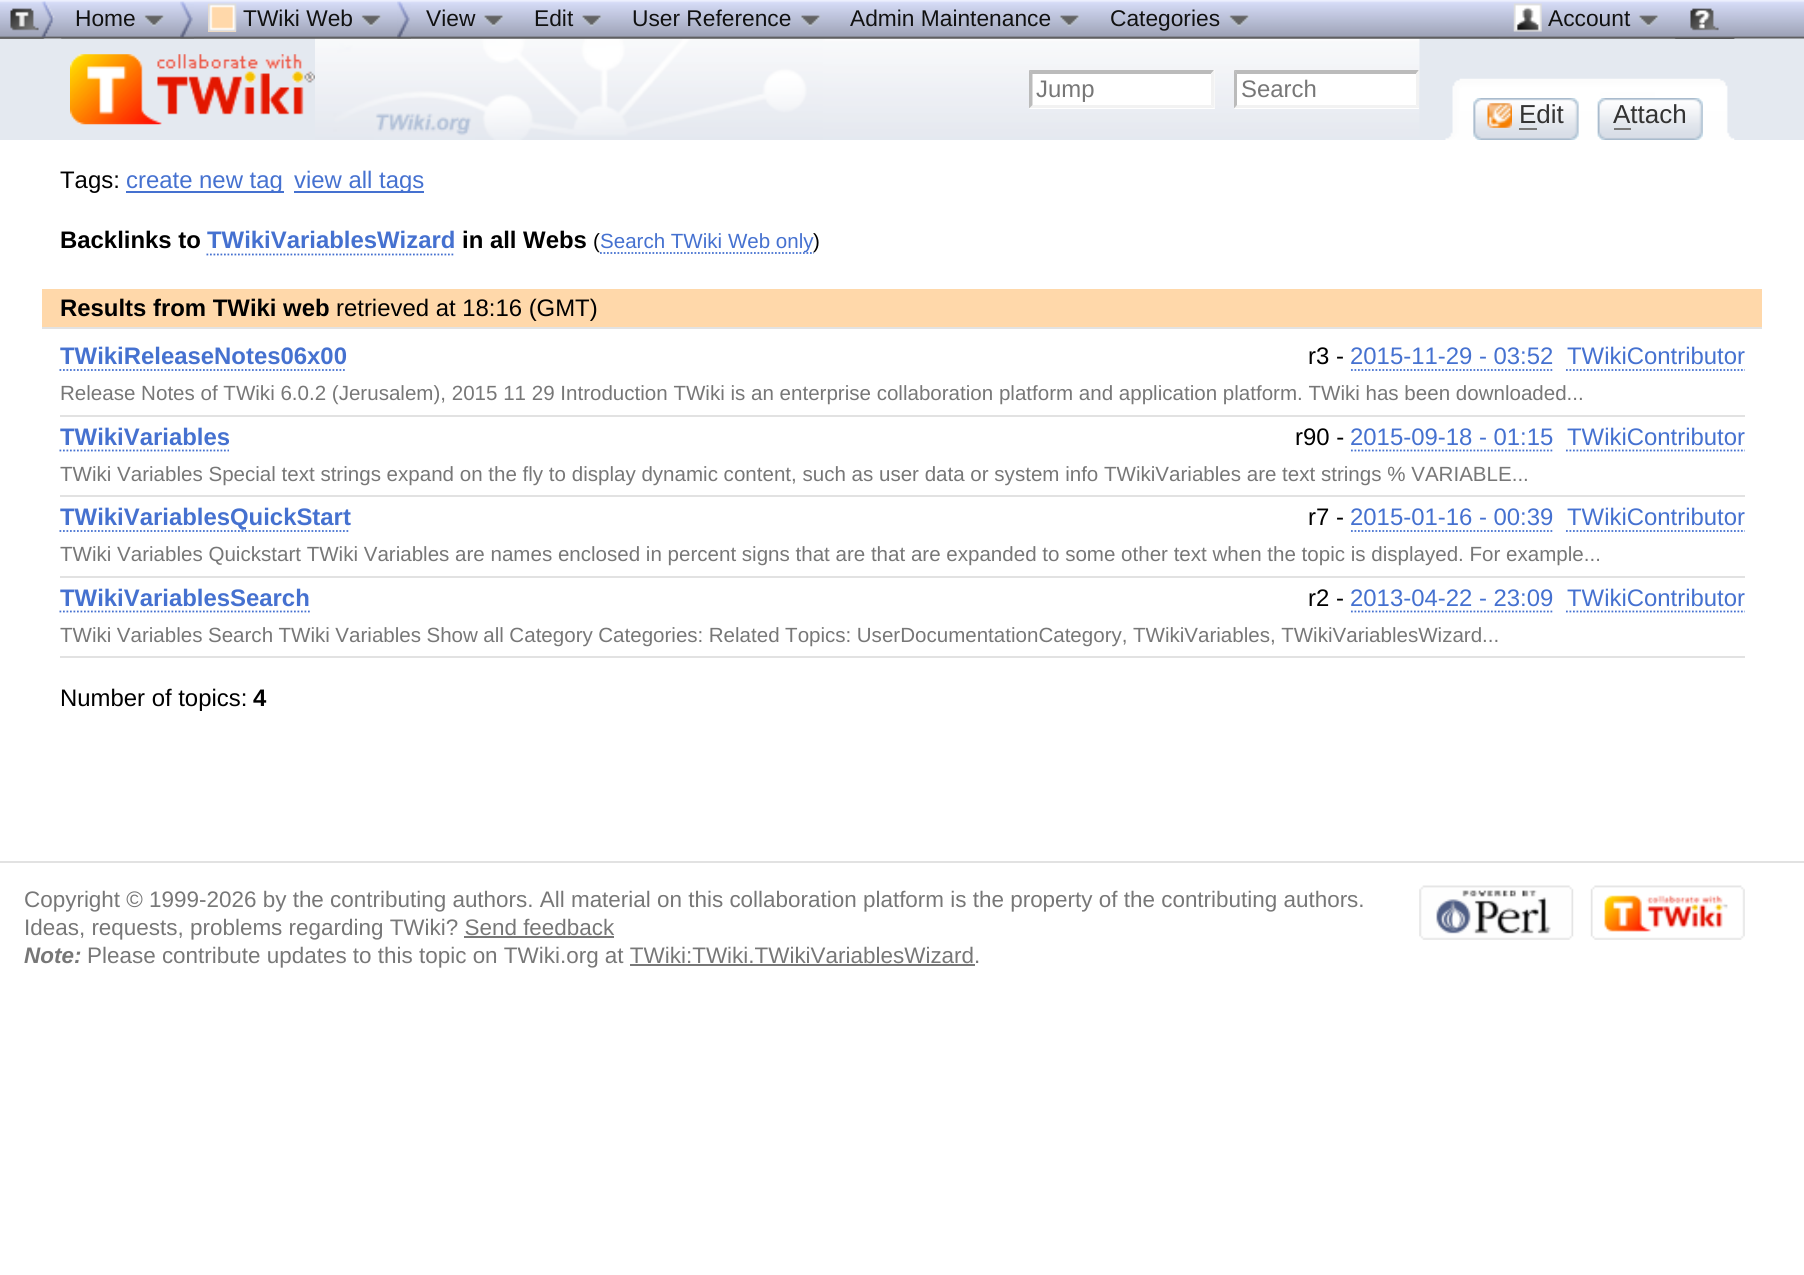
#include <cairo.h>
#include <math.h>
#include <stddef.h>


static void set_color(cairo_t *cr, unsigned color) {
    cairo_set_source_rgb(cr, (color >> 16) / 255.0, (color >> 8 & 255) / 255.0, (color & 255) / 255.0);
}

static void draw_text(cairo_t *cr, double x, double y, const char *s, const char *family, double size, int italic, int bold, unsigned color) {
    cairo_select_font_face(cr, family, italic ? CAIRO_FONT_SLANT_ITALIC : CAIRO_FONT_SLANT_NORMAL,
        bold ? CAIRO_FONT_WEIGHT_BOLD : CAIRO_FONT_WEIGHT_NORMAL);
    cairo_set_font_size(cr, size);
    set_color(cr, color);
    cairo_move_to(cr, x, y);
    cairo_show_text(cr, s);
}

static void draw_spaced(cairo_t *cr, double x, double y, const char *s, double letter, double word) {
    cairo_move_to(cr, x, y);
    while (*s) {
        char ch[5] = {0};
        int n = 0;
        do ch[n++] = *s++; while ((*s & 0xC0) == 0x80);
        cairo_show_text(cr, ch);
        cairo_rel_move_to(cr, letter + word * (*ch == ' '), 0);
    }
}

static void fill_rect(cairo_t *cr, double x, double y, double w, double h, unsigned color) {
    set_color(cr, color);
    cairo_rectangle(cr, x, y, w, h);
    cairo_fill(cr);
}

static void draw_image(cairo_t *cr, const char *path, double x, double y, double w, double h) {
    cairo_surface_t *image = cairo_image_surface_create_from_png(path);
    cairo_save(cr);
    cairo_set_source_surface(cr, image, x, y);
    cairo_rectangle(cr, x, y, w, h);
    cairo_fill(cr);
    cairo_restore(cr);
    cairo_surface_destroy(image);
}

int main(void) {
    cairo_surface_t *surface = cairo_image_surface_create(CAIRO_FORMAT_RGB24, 1804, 1275);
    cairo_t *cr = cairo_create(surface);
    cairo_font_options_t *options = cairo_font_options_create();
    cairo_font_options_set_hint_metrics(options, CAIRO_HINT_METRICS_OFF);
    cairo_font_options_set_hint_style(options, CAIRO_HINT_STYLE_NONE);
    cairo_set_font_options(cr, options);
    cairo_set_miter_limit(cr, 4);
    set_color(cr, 0xFFFFFF);
    cairo_paint(cr);
    fill_rect(cr, 0, 38, 1804, 102, 0xE4E9F0);
    draw_image(cr, "assets/img1.png", 0, 38, 45, 1);
    draw_image(cr, "assets/img21.png", 315, 38, 1105, 102);
    draw_image(cr, "assets/img2.png", 0, 0, 1804, 39);
    draw_image(cr, "assets/img3.png", 0, 1, 55, 38);
    draw_image(cr, "assets/img4.png", 61, 38, 1439, 1);
    draw_text(cr, 75, 26, "Home", "Liberation Sans", 22.75, 0, 0, 0x111111);
    draw_image(cr, "assets/img5.png", 143, 15, 22, 12);
    draw_image(cr, "assets/img6.png", 180, 1, 14, 38);
    fill_rect(cr, 208, 4, 28, 28, 0xFFD8AA);
    draw_image(cr, "assets/img7.png", 208, 3, 29, 29);
    draw_text(cr, 243, 26, "TWiki Web", "Liberation Sans", 22.75, 0, 0, 0x111111);
    draw_image(cr, "assets/img8.png", 360, 15, 22, 12);
    draw_image(cr, "assets/img9.png", 397, 1, 14, 38);
    draw_text(cr, 426, 26, "View", "Liberation Sans", 22.75, 0, 0, 0x111111);
    draw_image(cr, "assets/img10.png", 483, 15, 21, 12);
    draw_text(cr, 534, 26, "Edit", "Liberation Sans", 22.75, 0, 0, 0x111111);
    draw_image(cr, "assets/img11.png", 581, 15, 21, 12);
    draw_text(cr, 632, 26, "User Reference", "Liberation Sans", 22.75, 0, 0, 0x111111);
    draw_image(cr, "assets/img12.png", 800, 15, 21, 12);
    draw_text(cr, 850, 26, "Admin Maintenance", "Liberation Sans", 22.75, 0, 0, 0x111111);
    draw_image(cr, "assets/img13.png", 1059, 15, 21, 12);
    draw_text(cr, 1110, 26, "Categories", "Liberation Sans", 22.75, 0, 0, 0x111111);
    draw_image(cr, "assets/img14.png", 1228, 15, 22, 12);
    draw_image(cr, "assets/img15.png", 1499, 38, 176, 1);
    draw_image(cr, "assets/img16.png", 1513, 3, 29, 29);
    draw_text(cr, 1548, 26, "Account", "Liberation Sans", 22.75, 0, 0, 0x111111);
    draw_image(cr, "assets/img17.png", 1638, 15, 21, 12);
    draw_image(cr, "assets/img18.png", 1674, 38, 61, 1);
    draw_image(cr, "assets/img19.png", 1690, 8, 29, 23);
    draw_image(cr, "assets/img20.png", 70, 54, 245, 71);
    fill_rect(cr, 1029, 70, 186, 39, 0xFFFFFF);
    set_color(cr, 0xBBBBBB);
    cairo_new_path(cr);
    cairo_move_to(cr, 1029, 70);
    cairo_line_to(cr, 1214, 70);
    cairo_line_to(cr, 1211, 74);
    cairo_line_to(cr, 1032, 74);
    cairo_close_path(cr);
    cairo_fill(cr);
    set_color(cr, 0xF2F2F2);
    cairo_new_path(cr);
    cairo_move_to(cr, 1214.5, 70);
    cairo_line_to(cr, 1214.5, 108.5);
    cairo_line_to(cr, 1211, 105);
    cairo_line_to(cr, 1211, 73.5);
    cairo_close_path(cr);
    cairo_fill(cr);
    cairo_new_path(cr);
    cairo_move_to(cr, 1214, 108);
    cairo_line_to(cr, 1029, 108);
    cairo_line_to(cr, 1032, 105);
    cairo_line_to(cr, 1211, 105);
    cairo_close_path(cr);
    cairo_fill(cr);
    set_color(cr, 0xBBBBBB);
    cairo_new_path(cr);
    cairo_move_to(cr, 1029, 108.5);
    cairo_line_to(cr, 1029, 70);
    cairo_line_to(cr, 1032.5, 73.5);
    cairo_line_to(cr, 1032.5, 105);
    cairo_close_path(cr);
    cairo_fill(cr);
    draw_text(cr, 1036, 97, "Jump", "Liberation Sans", 23.9, 0, 0, 0x777777);
    fill_rect(cr, 1234, 70, 185, 39, 0xFFFFFF);
    set_color(cr, 0xBBBBBB);
    cairo_new_path(cr);
    cairo_move_to(cr, 1234, 70);
    cairo_line_to(cr, 1419, 70);
    cairo_line_to(cr, 1416, 74);
    cairo_line_to(cr, 1237, 74);
    cairo_close_path(cr);
    cairo_fill(cr);
    set_color(cr, 0xF2F2F2);
    cairo_new_path(cr);
    cairo_move_to(cr, 1419, 70);
    cairo_line_to(cr, 1419, 108.5);
    cairo_line_to(cr, 1416, 105);
    cairo_line_to(cr, 1416, 73.5);
    cairo_close_path(cr);
    cairo_fill(cr);
    cairo_new_path(cr);
    cairo_move_to(cr, 1419, 108);
    cairo_line_to(cr, 1234, 108);
    cairo_line_to(cr, 1237, 105);
    cairo_line_to(cr, 1416, 105);
    cairo_close_path(cr);
    cairo_fill(cr);
    set_color(cr, 0xBBBBBB);
    cairo_new_path(cr);
    cairo_move_to(cr, 1234, 108.5);
    cairo_line_to(cr, 1234, 70);
    cairo_line_to(cr, 1237, 73.5);
    cairo_line_to(cr, 1237, 105);
    cairo_close_path(cr);
    cairo_fill(cr);
    draw_text(cr, 1241, 97, "Search", "Liberation Sans", 23.9, 0, 0, 0x777777);
    draw_image(cr, "assets/img22.png", 1445, 78, 290, 62);
    draw_image(cr, "assets/img23.png", 1473, 98, 106, 42);
    draw_image(cr, "assets/img24.png", 1473, 98, 106, 42);
    draw_image(cr, "assets/img25.png", 1487, 103, 25, 25);
    draw_text(cr, 1519, 123, "Edit", "Liberation Sans", 26, 0, 0, 0x333333);
    fill_rect(cr, 1519, 128, 18, 2, 0x777777);
    draw_image(cr, "assets/img26.png", 1597, 98, 106, 42);
    draw_image(cr, "assets/img27.png", 1597, 98, 106, 42);
    draw_text(cr, 1613, 123, "Attach", "Liberation Sans", 26, 0, 0, 0x333333);
    fill_rect(cr, 1614, 128, 17, 2, 0x777777);
    draw_text(cr, 60, 188, "Tags:", "Liberation Sans", 23.9, 0, 0, 0x000000);
    fill_rect(cr, 126, 191, 158, 2, 0x4571D0);
    draw_text(cr, 126, 188, "create new tag", "Liberation Sans", 23.9, 0, 0, 0x4571D0);
    fill_rect(cr, 294, 191, 130, 2, 0x4571D0);
    draw_text(cr, 294, 188, "view all tags", "Liberation Sans", 23.9, 0, 0, 0x4571D0);
    draw_text(cr, 60, 248, "Backlinks to", "Liberation Sans", 23.9, 0, 1, 0x000000);
    draw_text(cr, 207, 248, "TWikiVariablesWizard", "Liberation Sans", 23.9, 0, 1, 0x4571D0);
    cairo_new_path(cr);
    cairo_move_to(cr, 206.5, 254.5);
    cairo_line_to(cr, 455, 254.5);
    cairo_set_line_width(cr, 1.8);
    cairo_set_dash(cr, (double[]){1.75, 1.75}, 2, 0);
    cairo_stroke(cr);
    draw_text(cr, 462, 248, "in all Webs", "Liberation Sans", 23.9, 0, 1, 0x000000);
    draw_text(cr, 593, 248, "(", "Liberation Sans", 20.55, 0, 0, 0x000000);
    cairo_new_path(cr);
    cairo_move_to(cr, 600, 253);
    cairo_line_to(cr, 814, 253);
    set_color(cr, 0x4571D0);
    cairo_stroke(cr);
    draw_text(cr, 600, 248, "Search TWiki Web only", "Liberation Sans", 20.55, 0, 0, 0x4571D0);
    draw_text(cr, 813, 248, ")", "Liberation Sans", 20.55, 0, 0, 0x000000);
    fill_rect(cr, 42, 289, 1720, 38, 0xFFD8AA);
    fill_rect(cr, 42, 327, 1720, 2, 0xE2E2E2);
    draw_text(cr, 60, 316, "Results from TWiki web", "Liberation Sans", 23.9, 0, 1, 0x000000);
    draw_text(cr, 336, 316, "retrieved at 18:16 (GMT)", "Liberation Sans", 23.9, 0, 0, 0x000000);
    draw_text(cr, 60, 364, "TWikiReleaseNotes06x00", "Liberation Sans", 23.9, 0, 1, 0x4571D0);
    cairo_new_path(cr);
    cairo_move_to(cr, 59.5, 370);
    cairo_line_to(cr, 346.5, 370);
    cairo_stroke(cr);
    draw_text(cr, 1308, 364, "r3 -", "Liberation Sans", 23.9, 0, 0, 0x000000);
    draw_text(cr, 1350, 364, "2015-11-29 - 03:52", "Liberation Sans", 23.9, 0, 0, 0x4571D0);
    cairo_new_path(cr);
    cairo_move_to(cr, 1351, 370);
    cairo_line_to(cr, 1554, 370);
    cairo_stroke(cr);
    draw_text(cr, 1567, 364, "TWikiContributor", "Liberation Sans", 23.9, 0, 0, 0x4571D0);
    cairo_new_path(cr);
    cairo_move_to(cr, 1566, 370);
    cairo_line_to(cr, 1745, 370);
    cairo_stroke(cr);
    fill_rect(cr, 60, 415, 1685, 2, 0xE2E2E2);
    draw_text(cr, 60, 400, "Release Notes of TWiki 6.0.2 (Jerusalem), 2015 11 29 Introduction TWiki is an enterprise collaboration platform and application platform. TWiki has been downloaded...", "Liberation Sans", 20.55, 0, 0, 0x777777);
    draw_text(cr, 60, 445, "TWikiVariables", "Liberation Sans", 23.9, 0, 1, 0x4571D0);
    cairo_new_path(cr);
    cairo_move_to(cr, 59.5, 450.5);
    cairo_line_to(cr, 229, 450.5);
    cairo_stroke(cr);
    draw_text(cr, 1295, 445, "r90 -", "Liberation Sans", 23.9, 0, 0, 0x000000);
    draw_text(cr, 1350, 445, "2015-09-18 - 01:15", "Liberation Sans", 23.9, 0, 0, 0x4571D0);
    cairo_new_path(cr);
    cairo_move_to(cr, 1351, 450.5);
    cairo_line_to(cr, 1554, 450.5);
    cairo_stroke(cr);
    draw_text(cr, 1567, 445, "TWikiContributor", "Liberation Sans", 23.9, 0, 0, 0x4571D0);
    cairo_new_path(cr);
    cairo_move_to(cr, 1566, 450.5);
    cairo_line_to(cr, 1745, 450.5);
    cairo_stroke(cr);
    fill_rect(cr, 60, 495, 1685, 2, 0xE2E2E2);
    draw_text(cr, 60, 481, "TWiki Variables Special text strings expand on the fly to display dynamic content, such as user data or system info TWikiVariables are text strings % VARIABLE...", "Liberation Sans", 20.55, 0, 0, 0x777777);
    draw_text(cr, 60, 525, "TWikiVariablesQuickStart", "Liberation Sans", 23.9, 0, 1, 0x4571D0);
    cairo_new_path(cr);
    cairo_move_to(cr, 59.5, 531);
    cairo_line_to(cr, 350, 531);
    cairo_stroke(cr);
    draw_text(cr, 1308, 525, "r7 -", "Liberation Sans", 23.9, 0, 0, 0x000000);
    draw_text(cr, 1350, 525, "2015-01-16 - 00:39", "Liberation Sans", 23.9, 0, 0, 0x4571D0);
    cairo_new_path(cr);
    cairo_move_to(cr, 1351, 531);
    cairo_line_to(cr, 1554, 531);
    cairo_stroke(cr);
    draw_text(cr, 1567, 525, "TWikiContributor", "Liberation Sans", 23.9, 0, 0, 0x4571D0);
    cairo_new_path(cr);
    cairo_move_to(cr, 1566, 531);
    cairo_line_to(cr, 1745, 531);
    cairo_stroke(cr);
    fill_rect(cr, 60, 576, 1685, 2, 0xE2E2E2);
    draw_text(cr, 60, 561, "TWiki Variables Quickstart TWiki Variables are names enclosed in percent signs that are that are expanded to some other text when the topic is displayed. For example...", "Liberation Sans", 20.55, 0, 0, 0x777777);
    draw_text(cr, 60, 606, "TWikiVariablesSearch", "Liberation Sans", 23.9, 0, 1, 0x4571D0);
    cairo_new_path(cr);
    cairo_move_to(cr, 59.5, 611.5);
    cairo_line_to(cr, 310, 611.5);
    cairo_stroke(cr);
    draw_text(cr, 1308, 606, "r2 -", "Liberation Sans", 23.9, 0, 0, 0x000000);
    draw_text(cr, 1350, 606, "2013-04-22 - 23:09", "Liberation Sans", 23.9, 0, 0, 0x4571D0);
    cairo_new_path(cr);
    cairo_move_to(cr, 1351, 611.5);
    cairo_line_to(cr, 1554, 611.5);
    cairo_stroke(cr);
    draw_text(cr, 1567, 606, "TWikiContributor", "Liberation Sans", 23.9, 0, 0, 0x4571D0);
    cairo_new_path(cr);
    cairo_move_to(cr, 1566, 611.5);
    cairo_line_to(cr, 1745, 611.5);
    cairo_stroke(cr);
    fill_rect(cr, 60, 656, 1685, 2, 0xE2E2E2);
    cairo_set_font_size(cr, 20.55);
    set_color(cr, 0x777777);
    draw_spaced(cr, 60, 642, "TWiki Variables Search TWiki Variables Show all Category Categories: Related Topics: UserDocumentationCategory, TWikiVariables, TWikiVariablesWizard...", 0, -0.25);
    draw_text(cr, 60, 706, "Number of topics:", "Liberation Sans", 23.9, 0, 0, 0x000000);
    draw_text(cr, 253, 706, "4", "Liberation Sans", 23.9, 0, 1, 0x000000);
    fill_rect(cr, 0, 861, 1804, 2, 0xE2E2E2);
    draw_text(cr, 24, 907, "Copyright © 1999-2026 by the contributing authors. All material on this collaboration platform is the property of the contributing authors.", "Liberation Sans", 22.45, 0, 0, 0x777777);
    draw_image(cr, "assets/img28.png", 1419, 885, 155, 55);
    draw_image(cr, "assets/img29.png", 1590, 885, 155, 55);
    draw_text(cr, 24, 935, "Ideas, requests, problems regarding TWiki? Send feedback", "Liberation Sans", 22.45, 0, 0, 0x777777);
    fill_rect(cr, 464, 936, 150, 2, 0x777777);
    draw_text(cr, 24, 963, "Note:", "Liberation Sans", 22.45, 1, 1, 0x777777);
    draw_text(cr, 87, 963, "Please contribute updates to this topic on TWiki.org at TWiki:TWiki.TWikiVariablesWizard.", "Liberation Sans", 22.45, 0, 0, 0x777777);
    fill_rect(cr, 630, 964, 345, 2, 0x777777);
    cairo_surface_write_to_png(surface, "output.png");
    cairo_font_options_destroy(options);
    cairo_destroy(cr);
    cairo_surface_destroy(surface);
    return 0;
}
